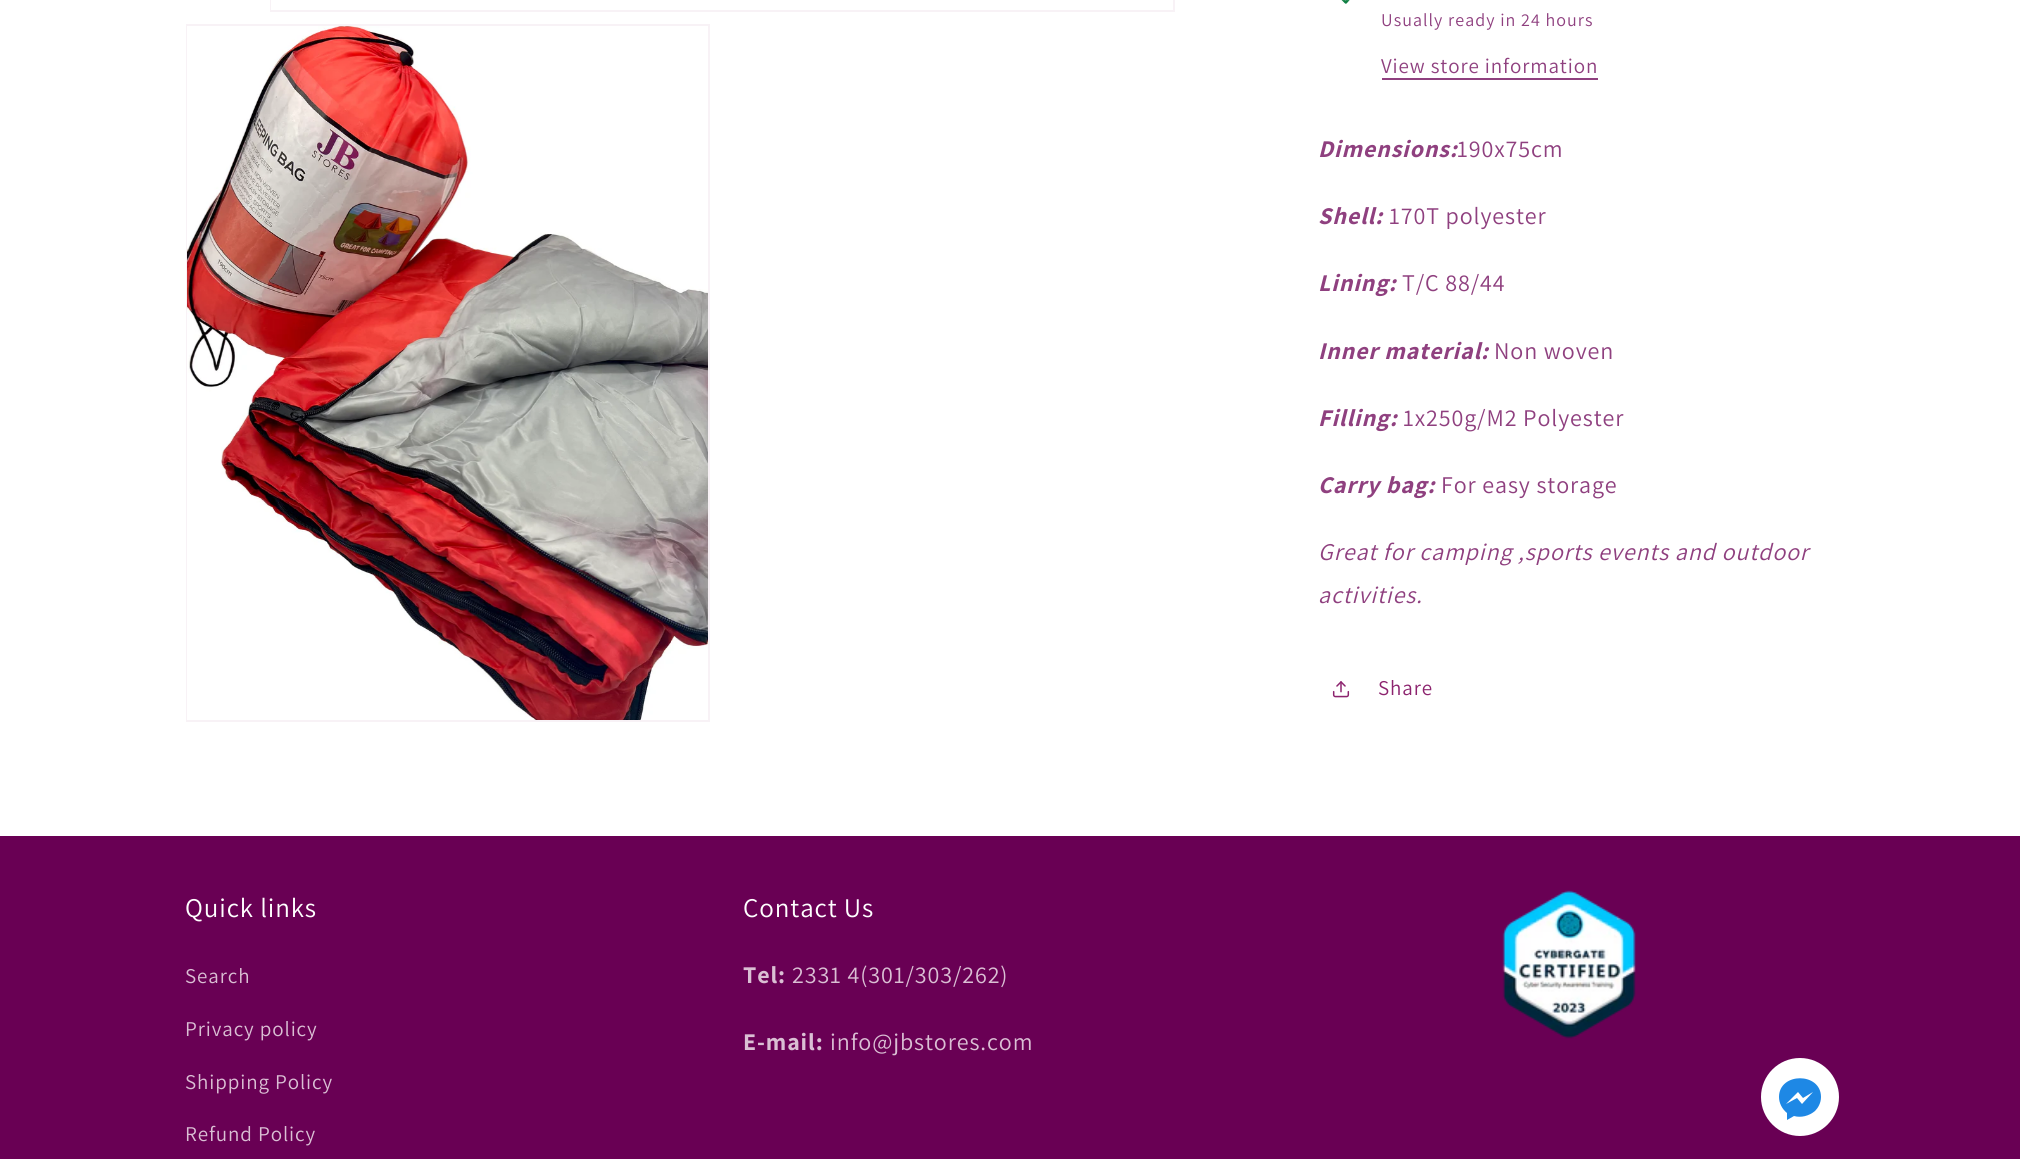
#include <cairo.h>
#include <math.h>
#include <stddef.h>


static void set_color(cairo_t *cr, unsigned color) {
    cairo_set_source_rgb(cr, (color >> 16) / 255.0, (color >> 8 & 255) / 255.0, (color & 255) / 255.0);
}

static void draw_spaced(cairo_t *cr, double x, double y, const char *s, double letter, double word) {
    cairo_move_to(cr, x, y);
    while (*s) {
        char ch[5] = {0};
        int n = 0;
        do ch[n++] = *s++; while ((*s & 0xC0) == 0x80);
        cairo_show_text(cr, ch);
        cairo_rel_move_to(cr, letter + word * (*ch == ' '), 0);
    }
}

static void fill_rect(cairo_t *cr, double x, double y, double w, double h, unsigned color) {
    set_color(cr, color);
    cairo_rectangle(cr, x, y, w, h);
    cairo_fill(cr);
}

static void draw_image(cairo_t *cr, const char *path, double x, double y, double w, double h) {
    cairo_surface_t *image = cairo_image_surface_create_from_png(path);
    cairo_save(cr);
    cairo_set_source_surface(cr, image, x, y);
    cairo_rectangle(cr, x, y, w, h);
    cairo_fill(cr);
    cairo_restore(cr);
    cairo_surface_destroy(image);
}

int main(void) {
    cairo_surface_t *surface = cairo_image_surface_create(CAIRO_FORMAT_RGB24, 2020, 1159);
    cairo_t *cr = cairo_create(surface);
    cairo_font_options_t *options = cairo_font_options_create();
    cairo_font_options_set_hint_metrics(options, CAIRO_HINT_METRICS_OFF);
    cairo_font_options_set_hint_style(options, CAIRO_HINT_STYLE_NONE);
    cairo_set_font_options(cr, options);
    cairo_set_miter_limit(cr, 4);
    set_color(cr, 0xFFFFFF);
    cairo_paint(cr);
    draw_image(cr, "assets/img2.png", 1341, 0, 9, 4);
    cairo_set_source_rgba(cr, 1, 1, 1, 0.08);
    cairo_rectangle(cr, 1342, 0, 8, 1);
    cairo_fill(cr);
    cairo_rectangle(cr, 271, -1, 903, 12);
    set_color(cr, 0xF8F2F6);
    cairo_stroke(cr);
    fill_rect(cr, 271, 0, 1, 10, 0xFFFFFF);
    cairo_rectangle(cr, 187, 25, 522, 696);
    set_color(cr, 0xF8F2F6);
    cairo_stroke(cr);
    draw_image(cr, "assets/img1.png", 187, 26, 521, 694);
    cairo_select_font_face(cr, "Assistant", CAIRO_FONT_SLANT_NORMAL, CAIRO_FONT_WEIGHT_NORMAL);
    cairo_set_font_size(cr, 18);
    set_color(cr, 0x8F407F);
    draw_spaced(cr, 1381, 26, "Usually ready in 24 hours", 1.05, 0);
    cairo_set_font_size(cr, 21);
    draw_spaced(cr, 1381, 73, "View store information", 0.9, 0);
    fill_rect(cr, 1382, 78, 216, 2, 0x8F407F);
    cairo_select_font_face(cr, "Assistant", CAIRO_FONT_SLANT_ITALIC, CAIRO_FONT_WEIGHT_BOLD);
    cairo_set_font_size(cr, 24);
    draw_spaced(cr, 1318, 157, "Dimensions:", 0.9, 0);
    cairo_select_font_face(cr, "Assistant", CAIRO_FONT_SLANT_NORMAL, CAIRO_FONT_WEIGHT_NORMAL);
    draw_spaced(cr, 1457, 157, "190x75cm", 0.9, 0);
    cairo_select_font_face(cr, "Assistant", CAIRO_FONT_SLANT_ITALIC, CAIRO_FONT_WEIGHT_BOLD);
    draw_spaced(cr, 1318, 224, "Shell:", 0.9, 0);
    cairo_select_font_face(cr, "Assistant", CAIRO_FONT_SLANT_NORMAL, CAIRO_FONT_WEIGHT_NORMAL);
    draw_spaced(cr, 1389, 224, "170T polyester", 0.9, 0);
    cairo_select_font_face(cr, "Assistant", CAIRO_FONT_SLANT_ITALIC, CAIRO_FONT_WEIGHT_BOLD);
    draw_spaced(cr, 1318, 291, "Lining:", 0.9, 0);
    cairo_select_font_face(cr, "Assistant", CAIRO_FONT_SLANT_NORMAL, CAIRO_FONT_WEIGHT_NORMAL);
    draw_spaced(cr, 1402, 291, "T/C 88/44", 0.9, 0);
    cairo_select_font_face(cr, "Assistant", CAIRO_FONT_SLANT_ITALIC, CAIRO_FONT_WEIGHT_BOLD);
    draw_spaced(cr, 1318, 359, "Inner material:", 0.9, 0);
    cairo_select_font_face(cr, "Assistant", CAIRO_FONT_SLANT_NORMAL, CAIRO_FONT_WEIGHT_NORMAL);
    draw_spaced(cr, 1494, 359, "Non woven", 0.9, 0);
    cairo_select_font_face(cr, "Assistant", CAIRO_FONT_SLANT_ITALIC, CAIRO_FONT_WEIGHT_BOLD);
    draw_spaced(cr, 1318, 426, "Filling:", 0.9, 0);
    cairo_select_font_face(cr, "Assistant", CAIRO_FONT_SLANT_NORMAL, CAIRO_FONT_WEIGHT_NORMAL);
    draw_spaced(cr, 1403, 426, "1x250g/M2 Polyester", 0.9, 0);
    cairo_select_font_face(cr, "Assistant", CAIRO_FONT_SLANT_ITALIC, CAIRO_FONT_WEIGHT_BOLD);
    draw_spaced(cr, 1318, 493, "Carry bag:", 0.9, 0);
    cairo_select_font_face(cr, "Assistant", CAIRO_FONT_SLANT_NORMAL, CAIRO_FONT_WEIGHT_NORMAL);
    draw_spaced(cr, 1441, 493, "For easy storage", 0.9, 0);
    cairo_select_font_face(cr, "Assistant", CAIRO_FONT_SLANT_ITALIC, CAIRO_FONT_WEIGHT_NORMAL);
    draw_spaced(cr, 1318, 560, "Great for camping ,sports events and outdoor", 0.9, 0);
    draw_spaced(cr, 1318, 603, "activities.", 0.9, 0);
    draw_image(cr, "assets/img3.png", 1332, 681, 18, 17);
    cairo_select_font_face(cr, "Assistant", CAIRO_FONT_SLANT_NORMAL, CAIRO_FONT_WEIGHT_NORMAL);
    cairo_set_font_size(cr, 21);
    set_color(cr, 0x8C236E);
    draw_spaced(cr, 1378, 695, "Share", 0.9, 0);
    fill_rect(cr, 0, 836, 2020, 323, 0x690054);
    cairo_set_font_size(cr, 27);
    set_color(cr, 0xFFFFFF);
    draw_spaced(cr, 185, 917, "Quick links", 0.9, 0);
    cairo_set_font_size(cr, 21);
    set_color(cr, 0xDABFD4);
    draw_spaced(cr, 185, 983, "Search", 0.9, 0);
    draw_spaced(cr, 185, 1036, "Privacy policy", 0.9, 0);
    draw_spaced(cr, 185, 1089, "Shipping Policy", 0.9, 0);
    draw_spaced(cr, 185, 1141, "Refund Policy", 0.9, 0);
    cairo_set_font_size(cr, 27);
    set_color(cr, 0xFFFFFF);
    draw_spaced(cr, 743, 917, "Contact Us", 0.9, 0);
    cairo_select_font_face(cr, "Assistant", CAIRO_FONT_SLANT_NORMAL, CAIRO_FONT_WEIGHT_BOLD);
    cairo_set_font_size(cr, 24);
    set_color(cr, 0xDABFD4);
    draw_spaced(cr, 743, 983, "Tel:", 0.9, 0);
    cairo_select_font_face(cr, "Assistant", CAIRO_FONT_SLANT_NORMAL, CAIRO_FONT_WEIGHT_NORMAL);
    draw_spaced(cr, 792, 983, "2331 4(301/303/262)", 0.9, 0);
    cairo_select_font_face(cr, "Assistant", CAIRO_FONT_SLANT_NORMAL, CAIRO_FONT_WEIGHT_BOLD);
    draw_spaced(cr, 743, 1050, "E-mail:", 0.9, 0);
    cairo_select_font_face(cr, "Assistant", CAIRO_FONT_SLANT_NORMAL, CAIRO_FONT_WEIGHT_NORMAL);
    draw_spaced(cr, 830, 1050, "info@jbstores.com", 0.9, 0);
    draw_image(cr, "assets/img4.png", 1502, 890, 134, 149);
    set_color(cr, 0xFFFFFF);
    cairo_arc(cr, 1800, 1097, 39, 0, 2 * M_PI);
    cairo_fill(cr);
    set_color(cr, 0x1E88E5);
    cairo_set_fill_rule(cr, CAIRO_FILL_RULE_EVEN_ODD);
    cairo_new_path(cr);
    cairo_move_to(cr, 1779, 1097);
    cairo_curve_to(cr, 1779, 1072, 1821, 1072, 1821, 1097);
    cairo_curve_to(cr, 1821, 1103, 1818, 1108, 1815, 1111);
    cairo_curve_to(cr, 1809, 1116, 1801, 1118, 1794, 1116);
    cairo_line_to(cr, 1787, 1120);
    cairo_line_to(cr, 1787, 1113);
    cairo_curve_to(cr, 1782, 1109, 1779, 1103, 1779, 1097);
    cairo_close_path(cr);
    cairo_move_to(cr, 1797, 1098);
    cairo_line_to(cr, 1802, 1104);
    cairo_line_to(cr, 1813, 1092);
    cairo_line_to(cr, 1803, 1098);
    cairo_line_to(cr, 1798, 1092);
    cairo_line_to(cr, 1786, 1104);
    cairo_close_path(cr);
    cairo_fill(cr);
    cairo_surface_write_to_png(surface, "output.png");
    cairo_font_options_destroy(options);
    cairo_destroy(cr);
    cairo_surface_destroy(surface);
    return 0;
}
